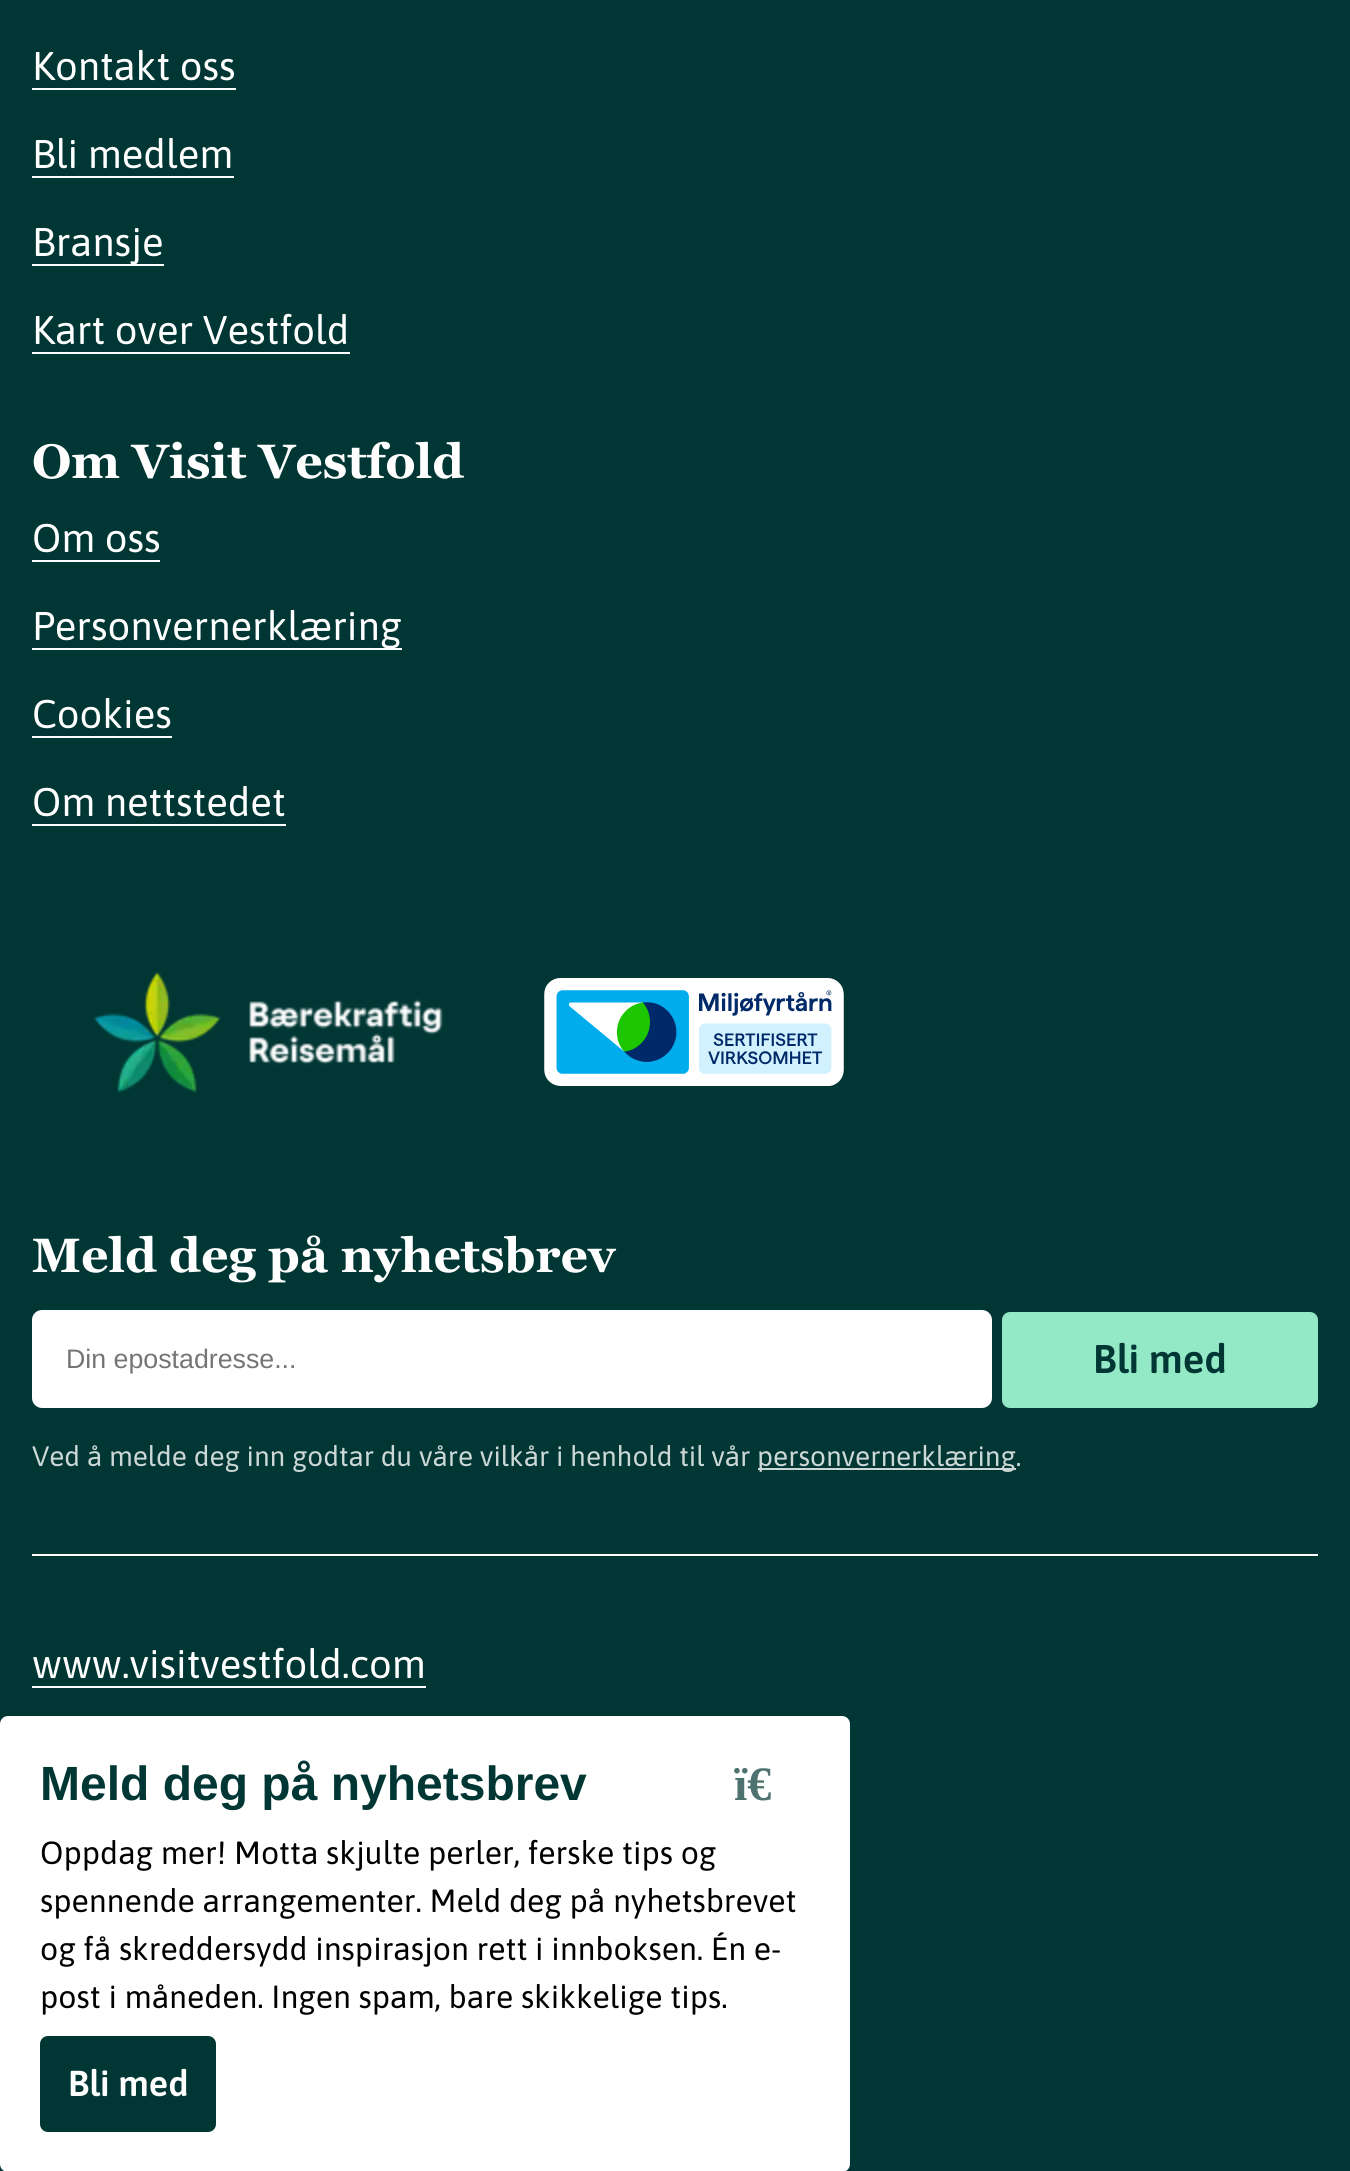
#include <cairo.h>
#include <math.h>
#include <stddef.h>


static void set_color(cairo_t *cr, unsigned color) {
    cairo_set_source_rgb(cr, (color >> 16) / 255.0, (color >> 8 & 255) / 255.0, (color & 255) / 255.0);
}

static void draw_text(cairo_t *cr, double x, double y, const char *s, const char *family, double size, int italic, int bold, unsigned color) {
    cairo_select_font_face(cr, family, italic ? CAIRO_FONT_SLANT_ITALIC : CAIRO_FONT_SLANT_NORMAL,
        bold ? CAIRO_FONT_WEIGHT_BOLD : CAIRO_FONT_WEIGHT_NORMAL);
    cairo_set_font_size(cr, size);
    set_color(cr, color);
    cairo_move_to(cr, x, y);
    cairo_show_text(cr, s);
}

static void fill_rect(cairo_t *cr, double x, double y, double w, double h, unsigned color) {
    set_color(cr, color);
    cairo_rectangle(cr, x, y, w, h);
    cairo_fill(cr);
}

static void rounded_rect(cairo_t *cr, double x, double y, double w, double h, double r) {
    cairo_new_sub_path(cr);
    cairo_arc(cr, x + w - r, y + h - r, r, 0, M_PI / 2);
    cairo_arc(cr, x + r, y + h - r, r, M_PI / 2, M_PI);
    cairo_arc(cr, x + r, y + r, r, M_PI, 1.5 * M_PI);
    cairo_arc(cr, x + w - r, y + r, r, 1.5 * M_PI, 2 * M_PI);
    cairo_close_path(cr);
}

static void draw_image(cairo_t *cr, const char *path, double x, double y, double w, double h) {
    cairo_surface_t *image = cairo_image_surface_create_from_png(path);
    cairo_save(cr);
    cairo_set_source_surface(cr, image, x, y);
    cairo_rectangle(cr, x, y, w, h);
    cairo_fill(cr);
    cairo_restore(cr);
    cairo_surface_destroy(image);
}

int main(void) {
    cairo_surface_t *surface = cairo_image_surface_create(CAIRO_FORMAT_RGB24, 1350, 2171);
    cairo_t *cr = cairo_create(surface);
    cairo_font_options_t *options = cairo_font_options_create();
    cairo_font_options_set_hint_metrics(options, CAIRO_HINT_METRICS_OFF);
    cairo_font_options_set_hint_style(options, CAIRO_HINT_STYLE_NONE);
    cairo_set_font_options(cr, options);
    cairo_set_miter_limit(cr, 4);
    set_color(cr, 0x003633);
    cairo_paint(cr);
    draw_text(cr, 32, 80, "Kontakt oss", "Asap", 40, 0, 0, 0xFFFFFF);
    fill_rect(cr, 32, 88, 204, 2, 0xFFFFFF);
    draw_text(cr, 32, 168, "Bli medlem", "Asap", 40, 0, 0, 0xFFFFFF);
    fill_rect(cr, 32, 176, 202, 2, 0xFFFFFF);
    fill_rect(cr, 32, 264, 132, 2, 0xFFFFFF);
    draw_text(cr, 32, 256, "Bransje", "Asap", 40, 0, 0, 0xFFFFFF);
    draw_text(cr, 32, 344, "Kart over Vestfold", "Asap", 40, 0, 0, 0xFFFFFF);
    fill_rect(cr, 32, 352, 318, 2, 0xFFFFFF);
    draw_text(cr, 32, 478, "Om Visit Vestfold", "Georgia", 48, 0, 1, 0xFFFFFF);
    draw_text(cr, 32, 552, "Om oss", "Asap", 40, 0, 0, 0xFFFFFF);
    fill_rect(cr, 32, 560, 128, 2, 0xFFFFFF);
    fill_rect(cr, 32, 648, 370, 2, 0xFFFFFF);
    draw_text(cr, 32, 640, "Personvernerklæring", "Asap", 40, 0, 0, 0xFFFFFF);
    draw_text(cr, 32, 728, "Cookies", "Asap", 40, 0, 0, 0xFFFFFF);
    fill_rect(cr, 32, 736, 140, 2, 0xFFFFFF);
    draw_text(cr, 32, 816, "Om nettstedet", "Asap", 40, 0, 0, 0xFFFFFF);
    fill_rect(cr, 32, 824, 254, 2, 0xFFFFFF);
    draw_image(cr, "assets/img1.png", 93, 971, 350, 122);
    draw_image(cr, "assets/img2.png", 544, 978, 300, 108);
    draw_text(cr, 32, 1272, "Meld deg på nyhetsbrev", "Georgia", 48, 0, 1, 0xFFFFFF);
    rounded_rect(cr, 34, 1312, 956, 94, 8);
    cairo_fill_preserve(cr);
    cairo_set_line_width(cr, 4);
    cairo_stroke(cr);
    draw_text(cr, 66, 1368, "Din epostadresse...", "Liberation Sans", 26.75, 0, 0, 0x757575);
    set_color(cr, 0x93E9C5);
    rounded_rect(cr, 1004, 1314, 312, 92, 6);
    cairo_fill_preserve(cr);
    cairo_stroke(cr);
    draw_text(cr, 1093, 1373, "Bli med", "Asap SemiBold", 40, 0, 0, 0x003633);
    draw_text(cr, 32, 1466, "Ved å melde deg inn godtar du våre vilkår i henhold til vår", "Asap", 28, 0, 0, 0xCCD7D6);
    fill_rect(cr, 758, 1468, 258, 2, 0xCCD7D6);
    draw_text(cr, 757, 1466, "personvernerklæring.", "Asap", 28, 0, 0, 0xCCD7D6);
    set_color(cr, 0xFFFFFF);
    rounded_rect(cr, 0, 1716, 850, 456, 8);
    cairo_fill(cr);
    draw_text(cr, 40, 1800, "Meld deg på nyhetsbrev", "Liberation Sans", 48, 0, 1, 0x003633);
    draw_text(cr, 734, 1800, "ï€", "Liberation Serif", 48, 0, 1, 0x4D7270);
    draw_text(cr, 40, 1864, "Oppdag mer! Motta skjulte perler, ferske tips og", "Asap", 32, 0, 0, 0x000000);
    draw_text(cr, 40, 1912, "spennende arrangementer. Meld deg på nyhetsbrevet", "Asap", 32, 0, 0, 0x000000);
    draw_text(cr, 40, 1960, "og få skreddersydd inspirasjon rett i innboksen. Én e-", "Asap", 32, 0, 0, 0x000000);
    draw_text(cr, 40, 2008, "post i måneden. Ingen spam, bare skikkelige tips.", "Asap", 32, 0, 0, 0x000000);
    set_color(cr, 0x003633);
    rounded_rect(cr, 42, 2038, 172, 92, 6);
    cairo_fill_preserve(cr);
    cairo_stroke(cr);
    draw_text(cr, 68, 2096, "Bli med", "Asap SemiBold", 36, 0, 0, 0xFFFFFF);
    fill_rect(cr, 32, 1554, 1286, 2, 0xFFFFFF);
    draw_text(cr, 32, 1678, "www.visitvestfold.com", "Asap", 40, 0, 0, 0xFFFFFF);
    fill_rect(cr, 32, 1686, 394, 2, 0xFFFFFF);
    cairo_surface_write_to_png(surface, "output.png");
    cairo_font_options_destroy(options);
    cairo_destroy(cr);
    cairo_surface_destroy(surface);
    return 0;
}
